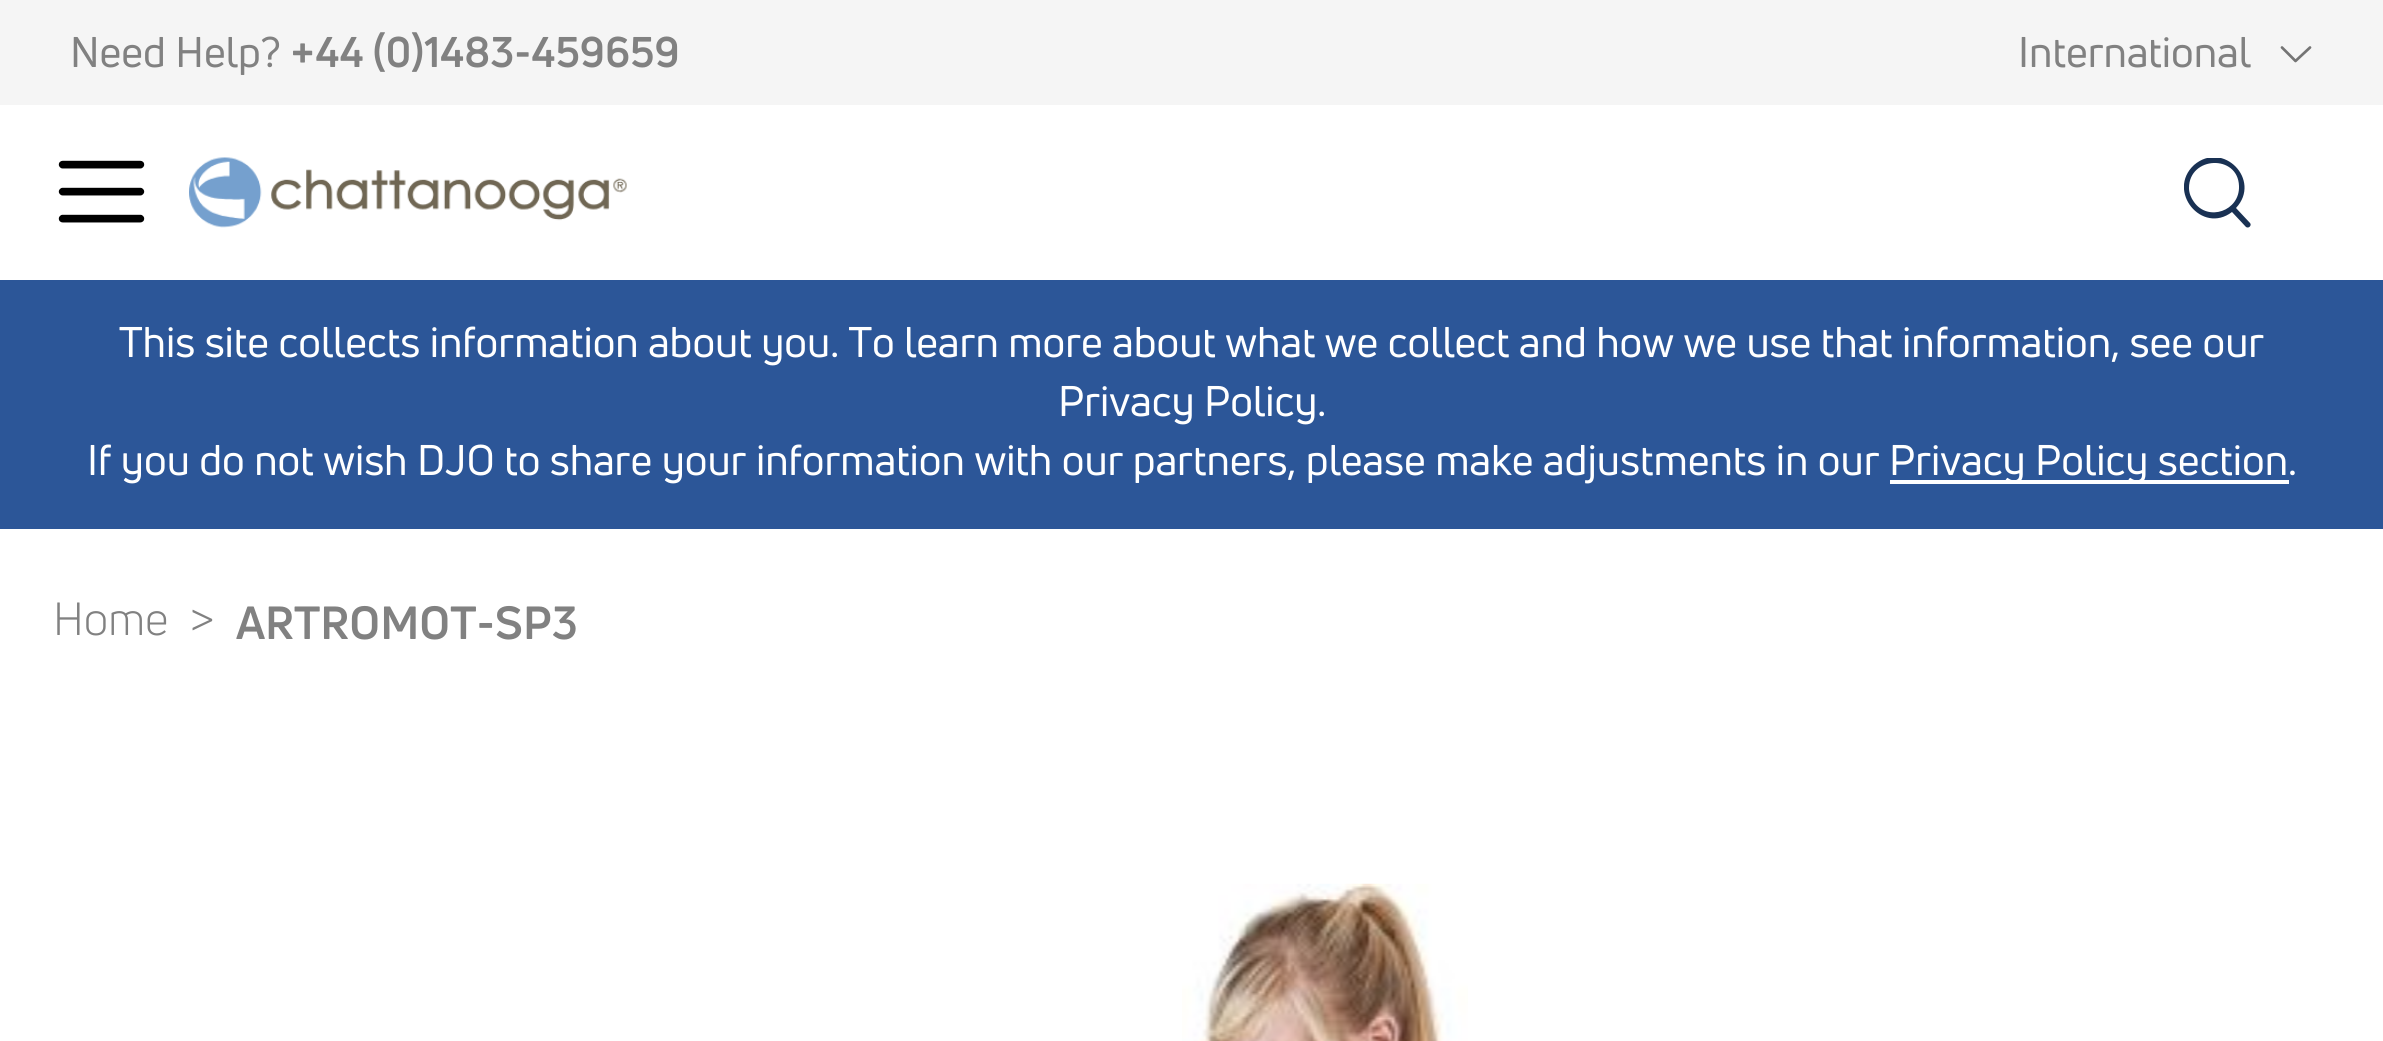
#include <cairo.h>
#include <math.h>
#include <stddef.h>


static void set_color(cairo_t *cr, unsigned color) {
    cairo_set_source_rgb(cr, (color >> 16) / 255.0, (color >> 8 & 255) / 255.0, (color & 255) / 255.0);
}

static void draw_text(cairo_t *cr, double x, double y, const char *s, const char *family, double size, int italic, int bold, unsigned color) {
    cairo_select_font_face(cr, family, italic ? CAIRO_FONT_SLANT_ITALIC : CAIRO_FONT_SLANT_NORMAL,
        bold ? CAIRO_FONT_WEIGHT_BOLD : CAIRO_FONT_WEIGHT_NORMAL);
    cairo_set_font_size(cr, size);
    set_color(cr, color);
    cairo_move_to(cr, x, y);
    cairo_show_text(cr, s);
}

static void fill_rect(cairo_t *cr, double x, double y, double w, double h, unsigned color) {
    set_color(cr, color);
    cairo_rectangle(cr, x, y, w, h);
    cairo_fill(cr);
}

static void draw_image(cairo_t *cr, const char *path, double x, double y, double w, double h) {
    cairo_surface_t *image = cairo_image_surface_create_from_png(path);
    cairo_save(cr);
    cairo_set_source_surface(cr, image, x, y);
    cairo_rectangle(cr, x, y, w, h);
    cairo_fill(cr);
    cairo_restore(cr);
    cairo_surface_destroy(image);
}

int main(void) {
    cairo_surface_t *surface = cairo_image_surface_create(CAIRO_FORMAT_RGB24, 2383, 1041);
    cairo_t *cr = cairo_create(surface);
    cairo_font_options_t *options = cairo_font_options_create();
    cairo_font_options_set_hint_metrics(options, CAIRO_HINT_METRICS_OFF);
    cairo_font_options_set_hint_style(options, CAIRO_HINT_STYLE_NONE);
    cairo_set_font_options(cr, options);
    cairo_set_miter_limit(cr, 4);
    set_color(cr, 0xFFFFFF);
    cairo_paint(cr);
    fill_rect(cr, 0, 0, 2383, 105, 0xF5F5F5);
    draw_text(cr, 70, 67, "Need Help?", "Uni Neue", 42, 0, 0, 0x818181);
    draw_text(cr, 290, 67, "+44 (0)1483-459659", "Uni Neue", 42, 0, 1, 0x818181);
    draw_text(cr, 2018, 67, "International", "Uni Neue", 42, 0, 0, 0x818181);
    cairo_new_path(cr);
    cairo_move_to(cr, 2282, 47.5);
    cairo_line_to(cr, 2295.5, 61);
    cairo_move_to(cr, 2295.5, 61);
    cairo_line_to(cr, 2310, 47.5);
    set_color(cr, 0x747474);
    cairo_set_line_width(cr, 2.7);
    cairo_set_line_cap(cr, CAIRO_LINE_CAP_ROUND);
    cairo_stroke(cr);
    draw_image(cr, "assets/img1.png", 58, 160, 87, 63);
    draw_image(cr, "assets/img2.png", 189, 157, 438, 71);
    cairo_save(cr);
    cairo_rectangle(cr, 2184, 158, 67, 70);
    cairo_clip(cr);
    set_color(cr, 0x193153);
    cairo_new_path(cr);
    cairo_move_to(cr, 2250, 223);
    cairo_line_to(cr, 2236, 208);
    cairo_curve_to(cr, 2262, 180, 2223, 140, 2194, 165);
    cairo_curve_to(cr, 2166, 191, 2202, 235, 2232, 212);
    cairo_line_to(cr, 2246, 227);
    cairo_curve_to(cr, 2249, 229, 2252, 225, 2250, 223);
    cairo_close_path(cr);
    cairo_move_to(cr, 2189, 188);
    cairo_curve_to(cr, 2189, 156, 2238, 154, 2239, 186);
    cairo_curve_to(cr, 2240, 211, 2208, 222, 2194, 202);
    cairo_curve_to(cr, 2191, 198, 2189, 193, 2189, 188);
    cairo_close_path(cr);
    cairo_fill(cr);
    cairo_restore(cr);
    fill_rect(cr, 0, 280, 2383, 249, 0x2C5698);
    draw_text(cr, 119, 357, "This site collects information about you. To learn more about what we collect and how we use that information, see our", "Uni Neue", 42, 0, 0, 0xFFFFFF);
    draw_text(cr, 1058, 416, "Privacy Policy.", "Uni Neue", 42, 0, 0, 0xFFFFFF);
    draw_text(cr, 87, 475, "If you do not wish DJO to share your information with our partners, please make adjustments in our", "Uni Neue", 42, 0, 0, 0xFFFFFF);
    fill_rect(cr, 1890, 480, 399, 4, 0xFFFFFF);
    draw_text(cr, 1889, 475, "Privacy Policy section.", "Uni Neue", 42, 0, 0, 0xFFFFFF);
    draw_text(cr, 53, 635, "Home", "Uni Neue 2", 45.5, 0, 0, 0x818181);
    draw_text(cr, 189, 635, ">", "Uni Neue 2", 45.5, 0, 0, 0x818181);
    draw_text(cr, 236, 639, "ARTROMOT-SP3", "Uni Neue", 45.5, 0, 1, 0x818181);
    draw_image(cr, "assets/img3.png", 1182, 883, 286, 158);
    cairo_surface_write_to_png(surface, "output.png");
    cairo_font_options_destroy(options);
    cairo_destroy(cr);
    cairo_surface_destroy(surface);
    return 0;
}
